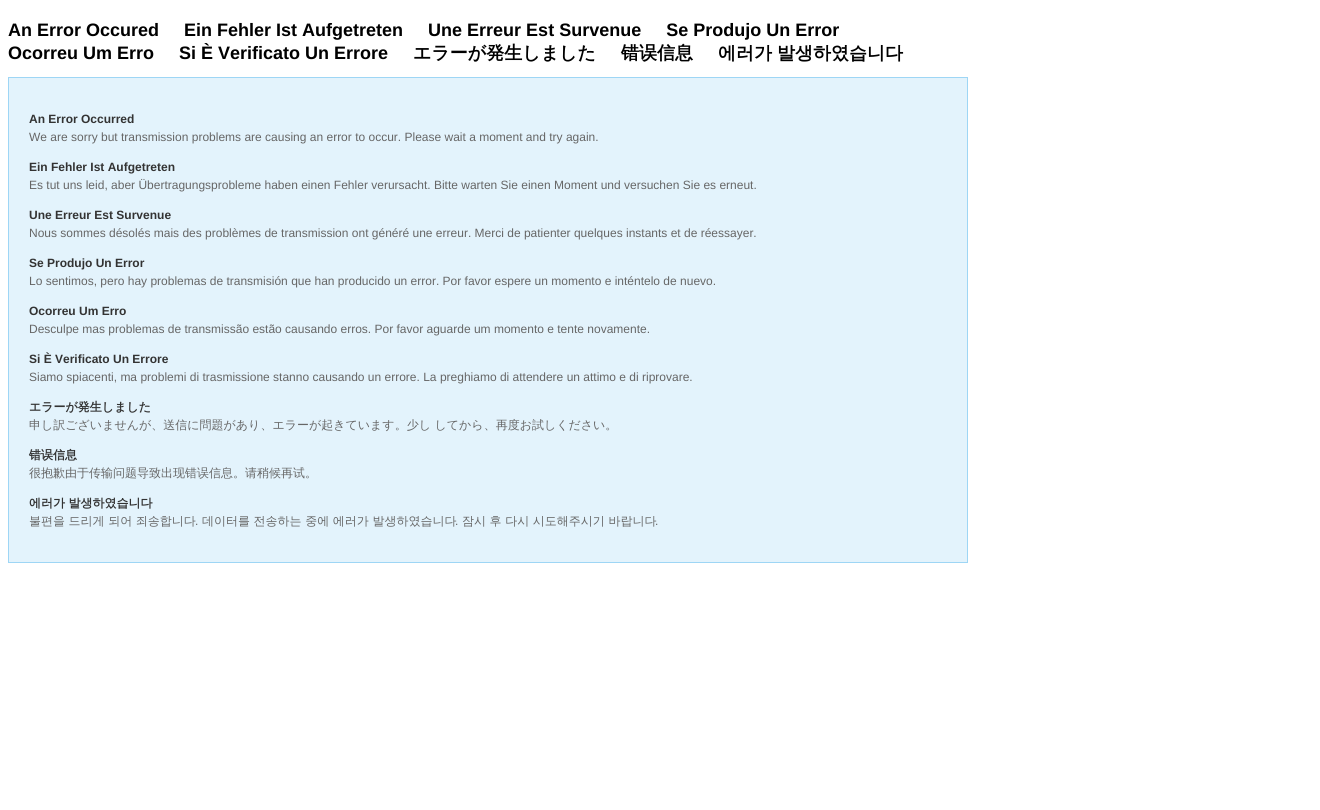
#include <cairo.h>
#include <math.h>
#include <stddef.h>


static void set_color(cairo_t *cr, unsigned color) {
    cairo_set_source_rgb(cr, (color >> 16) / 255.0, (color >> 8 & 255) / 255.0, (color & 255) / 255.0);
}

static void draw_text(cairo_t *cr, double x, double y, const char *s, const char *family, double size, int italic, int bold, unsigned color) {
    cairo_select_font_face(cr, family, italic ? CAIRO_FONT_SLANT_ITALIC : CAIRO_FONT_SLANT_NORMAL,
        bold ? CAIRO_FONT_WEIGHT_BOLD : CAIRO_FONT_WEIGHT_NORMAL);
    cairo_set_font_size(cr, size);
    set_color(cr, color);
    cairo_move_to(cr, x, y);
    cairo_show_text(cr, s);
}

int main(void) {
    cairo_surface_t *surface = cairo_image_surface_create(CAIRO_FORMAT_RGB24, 1320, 810);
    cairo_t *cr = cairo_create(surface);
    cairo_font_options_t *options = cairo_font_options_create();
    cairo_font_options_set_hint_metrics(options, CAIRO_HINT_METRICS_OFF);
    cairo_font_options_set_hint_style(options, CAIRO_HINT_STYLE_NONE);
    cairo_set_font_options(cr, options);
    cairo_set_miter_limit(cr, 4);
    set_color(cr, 0xFFFFFF);
    cairo_paint(cr);
    draw_text(cr, 8, 36, "An Error Occured     Ein Fehler Ist Aufgetreten     Une Erreur Est Survenue     Se Produjo Un Error", "Liberation Sans", 18, 0, 1, 0x000000);
    draw_text(cr, 8, 59, "Ocorreu Um Erro     Si È Verificato Un Errore", "Liberation Sans", 18, 0, 1, 0x000000);
    draw_text(cr, 413, 59, "エラーが発生しました", "WenQuanYi Zen Hei", 18, 0, 1, 0x000000);
    draw_text(cr, 621, 59, "错误信息", "WenQuanYi Zen Hei", 18, 0, 1, 0x000000);
    draw_text(cr, 718, 59, "에러가", "WenQuanYi Zen Hei", 18, 0, 1, 0x000000);
    draw_text(cr, 777, 59, "발생하였습니다", "WenQuanYi Zen Hei", 18, 0, 1, 0x000000);
    set_color(cr, 0xE3F3FC);
    cairo_rectangle(cr, 8.5, 77.5, 959, 485);
    cairo_fill_preserve(cr);
    set_color(cr, 0x9ED6F5);
    cairo_set_line_width(cr, 1);
    cairo_stroke(cr);
    draw_text(cr, 29, 123, "An Error Occurred", "Liberation Sans", 12, 0, 1, 0x333333);
    draw_text(cr, 29, 141, "We are sorry but transmission problems are causing an error to occur. Please wait a moment and try again.", "Liberation Sans", 12, 0, 0, 0x666666);
    draw_text(cr, 29, 171, "Ein Fehler Ist Aufgetreten", "Liberation Sans", 12, 0, 1, 0x333333);
    draw_text(cr, 29, 189, "Es tut uns leid, aber Übertragungsprobleme haben einen Fehler verursacht. Bitte warten Sie einen Moment und versuchen Sie es erneut.", "Liberation Sans", 12, 0, 0, 0x666666);
    draw_text(cr, 29, 219, "Une Erreur Est Survenue", "Liberation Sans", 12, 0, 1, 0x333333);
    draw_text(cr, 29, 237, "Nous sommes désolés mais des problèmes de transmission ont généré une erreur. Merci de patienter quelques instants et de réessayer.", "Liberation Sans", 12, 0, 0, 0x666666);
    draw_text(cr, 29, 267, "Se Produjo Un Error", "Liberation Sans", 12, 0, 1, 0x333333);
    draw_text(cr, 29, 285, "Lo sentimos, pero hay problemas de transmisión que han producido un error. Por favor espere un momento e inténtelo de nuevo.", "Liberation Sans", 12, 0, 0, 0x666666);
    draw_text(cr, 29, 315, "Ocorreu Um Erro", "Liberation Sans", 12, 0, 1, 0x333333);
    draw_text(cr, 29, 333, "Desculpe mas problemas de transmissão estão causando erros. Por favor aguarde um momento e tente novamente.", "Liberation Sans", 12, 0, 0, 0x666666);
    draw_text(cr, 29, 363, "Si È Verificato Un Errore", "Liberation Sans", 12, 0, 1, 0x333333);
    draw_text(cr, 29, 381, "Siamo spiacenti, ma problemi di trasmissione stanno causando un errore. La preghiamo di attendere un attimo e di riprovare.", "Liberation Sans", 12, 0, 0, 0x666666);
    draw_text(cr, 29, 411, "エラーが発生しました", "WenQuanYi Zen Hei", 12, 0, 1, 0x333333);
    draw_text(cr, 29, 429, "申し訳ございませんが、送信に問題があり、エラーが起きています。少し してから、再度お試しください。", "WenQuanYi Zen Hei Medium", 12, 0, 0, 0x666666);
    draw_text(cr, 29, 459, "错误信息", "WenQuanYi Zen Hei", 12, 0, 1, 0x333333);
    draw_text(cr, 29, 477, "很抱歉由于传输问题导致出现错误信息。请稍候再试。", "WenQuanYi Zen Hei Medium", 12, 0, 0, 0x666666);
    draw_text(cr, 29, 507, "에러가 발생하였습니다", "WenQuanYi Zen Hei", 12, 0, 1, 0x333333);
    draw_text(cr, 29, 525, "불편을 드리게 되어 죄송합니다", "WenQuanYi Zen Hei Medium", 12, 0, 0, 0x666666);
    draw_text(cr, 195, 525, ".", "Liberation Sans", 12, 0, 0, 0x666666);
    draw_text(cr, 202, 525, "데이터를 전송하는 중에 에러가 발생하였습니다", "WenQuanYi Zen Hei Medium", 12, 0, 0, 0x666666);
    draw_text(cr, 455, 525, ".", "Liberation Sans", 12, 0, 0, 0x666666);
    draw_text(cr, 462, 525, "잠시 후 다시 시도해주시기 바랍니다", "WenQuanYi Zen Hei Medium", 12, 0, 0, 0x666666);
    draw_text(cr, 655, 525, ".", "Liberation Sans", 12, 0, 0, 0x666666);
    cairo_surface_write_to_png(surface, "output.png");
    cairo_font_options_destroy(options);
    cairo_destroy(cr);
    cairo_surface_destroy(surface);
    return 0;
}
